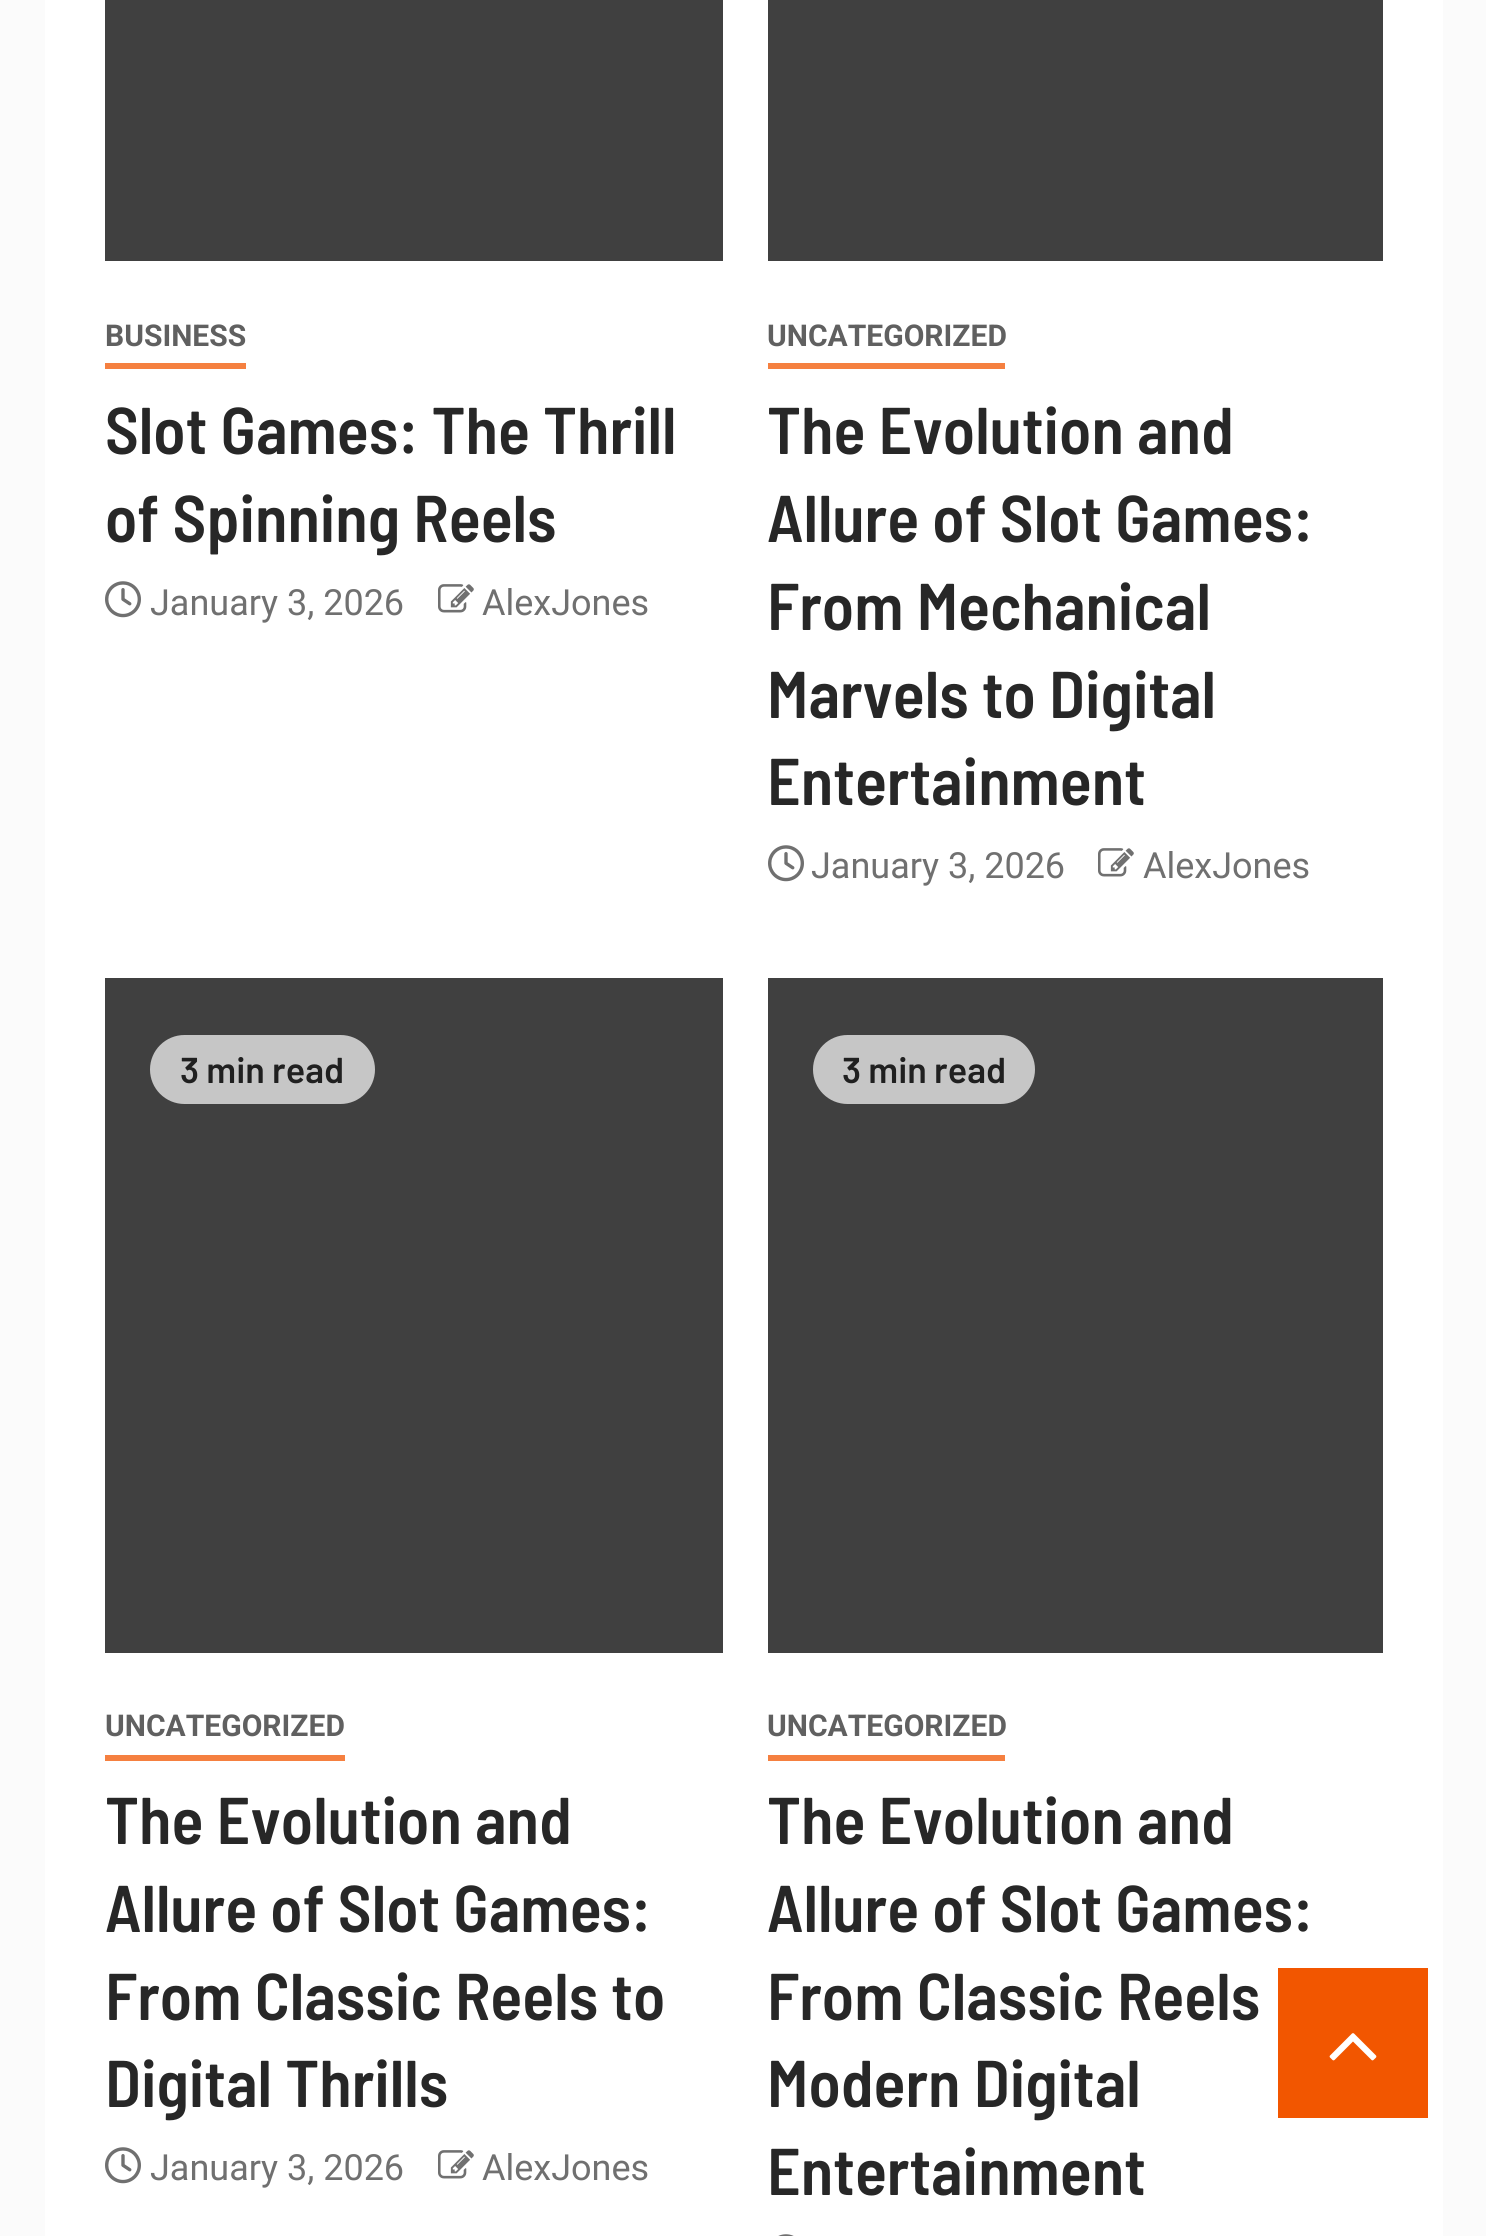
#include <cairo.h>
#include <math.h>
#include <stddef.h>


static void set_color(cairo_t *cr, unsigned color) {
    cairo_set_source_rgb(cr, (color >> 16) / 255.0, (color >> 8 & 255) / 255.0, (color & 255) / 255.0);
}

static void draw_text(cairo_t *cr, double x, double y, const char *s, const char *family, double size, int italic, int bold, unsigned color) {
    cairo_select_font_face(cr, family, italic ? CAIRO_FONT_SLANT_ITALIC : CAIRO_FONT_SLANT_NORMAL,
        bold ? CAIRO_FONT_WEIGHT_BOLD : CAIRO_FONT_WEIGHT_NORMAL);
    cairo_set_font_size(cr, size);
    set_color(cr, color);
    cairo_move_to(cr, x, y);
    cairo_show_text(cr, s);
}

static void fill_rect(cairo_t *cr, double x, double y, double w, double h, unsigned color) {
    set_color(cr, color);
    cairo_rectangle(cr, x, y, w, h);
    cairo_fill(cr);
}

static void rounded_rect(cairo_t *cr, double x, double y, double w, double h, double r) {
    cairo_new_sub_path(cr);
    cairo_arc(cr, x + w - r, y + h - r, r, 0, M_PI / 2);
    cairo_arc(cr, x + r, y + h - r, r, M_PI / 2, M_PI);
    cairo_arc(cr, x + r, y + r, r, M_PI, 1.5 * M_PI);
    cairo_arc(cr, x + w - r, y + r, r, 1.5 * M_PI, 2 * M_PI);
    cairo_close_path(cr);
}

static void draw_image(cairo_t *cr, const char *path, double x, double y, double w, double h) {
    cairo_surface_t *image = cairo_image_surface_create_from_png(path);
    cairo_save(cr);
    cairo_set_source_surface(cr, image, x, y);
    cairo_rectangle(cr, x, y, w, h);
    cairo_fill(cr);
    cairo_restore(cr);
    cairo_surface_destroy(image);
}

int main(void) {
    cairo_surface_t *surface = cairo_image_surface_create(CAIRO_FORMAT_RGB24, 1486, 2236);
    cairo_t *cr = cairo_create(surface);
    cairo_font_options_t *options = cairo_font_options_create();
    cairo_font_options_set_hint_metrics(options, CAIRO_HINT_METRICS_OFF);
    cairo_font_options_set_hint_style(options, CAIRO_HINT_STYLE_NONE);
    cairo_set_font_options(cr, options);
    cairo_set_miter_limit(cr, 4);
    set_color(cr, 0xFBFBFB);
    cairo_paint(cr);
    fill_rect(cr, 45, 0, 1398, 2236, 0xFFFFFF);
    fill_rect(cr, 105, 0, 618, 261, 0x404040);
    fill_rect(cr, 105, 363, 141, 6, 0xF58040);
    draw_text(cr, 105, 346, "BUSINESS", "Roboto", 30, 0, 1, 0x606060);
    draw_text(cr, 105, 454, "Slot Games: The Thrill", "Barlow Semi Condensed SemiBold", 66, 0, 0, 0x272727);
    draw_text(cr, 105, 542, "of Spinning Reels", "Barlow Semi Condensed SemiBold", 66, 0, 0, 0x272727);
    draw_image(cr, "assets/img1.png", 105, 581, 36, 37);
    draw_text(cr, 150, 615, "January 3, 2026", "Roboto", 36, 0, 0, 0x707070);
    draw_image(cr, "assets/img2.png", 438, 584, 36, 29);
    draw_text(cr, 482, 615, "AlexJones", "Roboto", 36, 0, 0, 0x707070);
    fill_rect(cr, 768, 0, 615, 261, 0x404040);
    fill_rect(cr, 768, 363, 237, 6, 0xF58040);
    draw_text(cr, 767, 346, "UNCATEGORIZED", "Roboto", 30, 0, 1, 0x606060);
    draw_text(cr, 767, 454, "The Evolution and", "Barlow Semi Condensed SemiBold", 66, 0, 0, 0x272727);
    draw_text(cr, 767, 542, "Allure of Slot Games:", "Barlow Semi Condensed SemiBold", 66, 0, 0, 0x272727);
    draw_text(cr, 767, 630, "From Mechanical", "Barlow Semi Condensed SemiBold", 66, 0, 0, 0x272727);
    draw_text(cr, 767, 718, "Marvels to Digital", "Barlow Semi Condensed SemiBold", 66, 0, 0, 0x272727);
    draw_text(cr, 767, 805, "Entertainment", "Barlow Semi Condensed SemiBold", 66, 0, 0, 0x272727);
    draw_image(cr, "assets/img1.png", 768, 845, 36, 37);
    draw_text(cr, 811, 878, "January 3, 2026", "Roboto", 36, 0, 0, 0x707070);
    draw_image(cr, "assets/img2.png", 1098, 848, 36, 29);
    draw_text(cr, 1143, 878, "AlexJones", "Roboto", 36, 0, 0, 0x707070);
    fill_rect(cr, 105, 978, 618, 675, 0x404040);
    set_color(cr, 0xC6C6C6);
    rounded_rect(cr, 150, 1035, 225, 69, 34.5);
    cairo_fill(cr);
    draw_text(cr, 180, 1083, "3 min read", "Barlow SemiBold", 36, 0, 0, 0x202020);
    fill_rect(cr, 105, 1755, 240, 6, 0xF58040);
    draw_text(cr, 105, 1736, "UNCATEGORIZED", "Roboto", 30, 0, 1, 0x606060);
    draw_text(cr, 105, 1844, "The Evolution and", "Barlow Semi Condensed SemiBold", 66, 0, 0, 0x272727);
    draw_text(cr, 105, 1932, "Allure of Slot Games:", "Barlow Semi Condensed SemiBold", 66, 0, 0, 0x272727);
    draw_text(cr, 105, 2020, "From Classic Reels to", "Barlow Semi Condensed SemiBold", 66, 0, 0, 0x272727);
    draw_text(cr, 105, 2107, "Digital Thrills", "Barlow Semi Condensed SemiBold", 66, 0, 0, 0x272727);
    draw_image(cr, "assets/img1.png", 105, 2147, 36, 37);
    draw_text(cr, 150, 2180, "January 3, 2026", "Roboto", 36, 0, 0, 0x707070);
    draw_image(cr, "assets/img2.png", 438, 2150, 36, 29);
    draw_text(cr, 482, 2180, "AlexJones", "Roboto", 36, 0, 0, 0x707070);
    fill_rect(cr, 768, 978, 615, 675, 0x404040);
    set_color(cr, 0xC6C6C6);
    rounded_rect(cr, 813, 1035, 222, 69, 34.5);
    cairo_fill(cr);
    draw_text(cr, 842, 1083, "3 min read", "Barlow SemiBold", 36, 0, 0, 0x202020);
    fill_rect(cr, 768, 1755, 237, 6, 0xF58040);
    draw_text(cr, 767, 1736, "UNCATEGORIZED", "Roboto", 30, 0, 1, 0x606060);
    draw_text(cr, 767, 1844, "The Evolution and", "Barlow Semi Condensed SemiBold", 66, 0, 0, 0x272727);
    draw_text(cr, 767, 1932, "Allure of Slot Games:", "Barlow Semi Condensed SemiBold", 66, 0, 0, 0x272727);
    draw_text(cr, 767, 2020, "From Classic Reels", "Barlow Semi Condensed SemiBold", 66, 0, 0, 0x272727);
    draw_text(cr, 767, 2107, "Modern Digital", "Barlow Semi Condensed SemiBold", 66, 0, 0, 0x272727);
    draw_text(cr, 767, 2195, "Entertainment", "Barlow Semi Condensed SemiBold", 66, 0, 0, 0x272727);
    draw_image(cr, "assets/img3.png", 778, 2234, 16, 2);
    fill_rect(cr, 1278, 1968, 150, 150, 0xF25600);
    draw_image(cr, "assets/img4.png", 1329, 2033, 48, 28);
    cairo_surface_write_to_png(surface, "output.png");
    cairo_font_options_destroy(options);
    cairo_destroy(cr);
    cairo_surface_destroy(surface);
    return 0;
}
